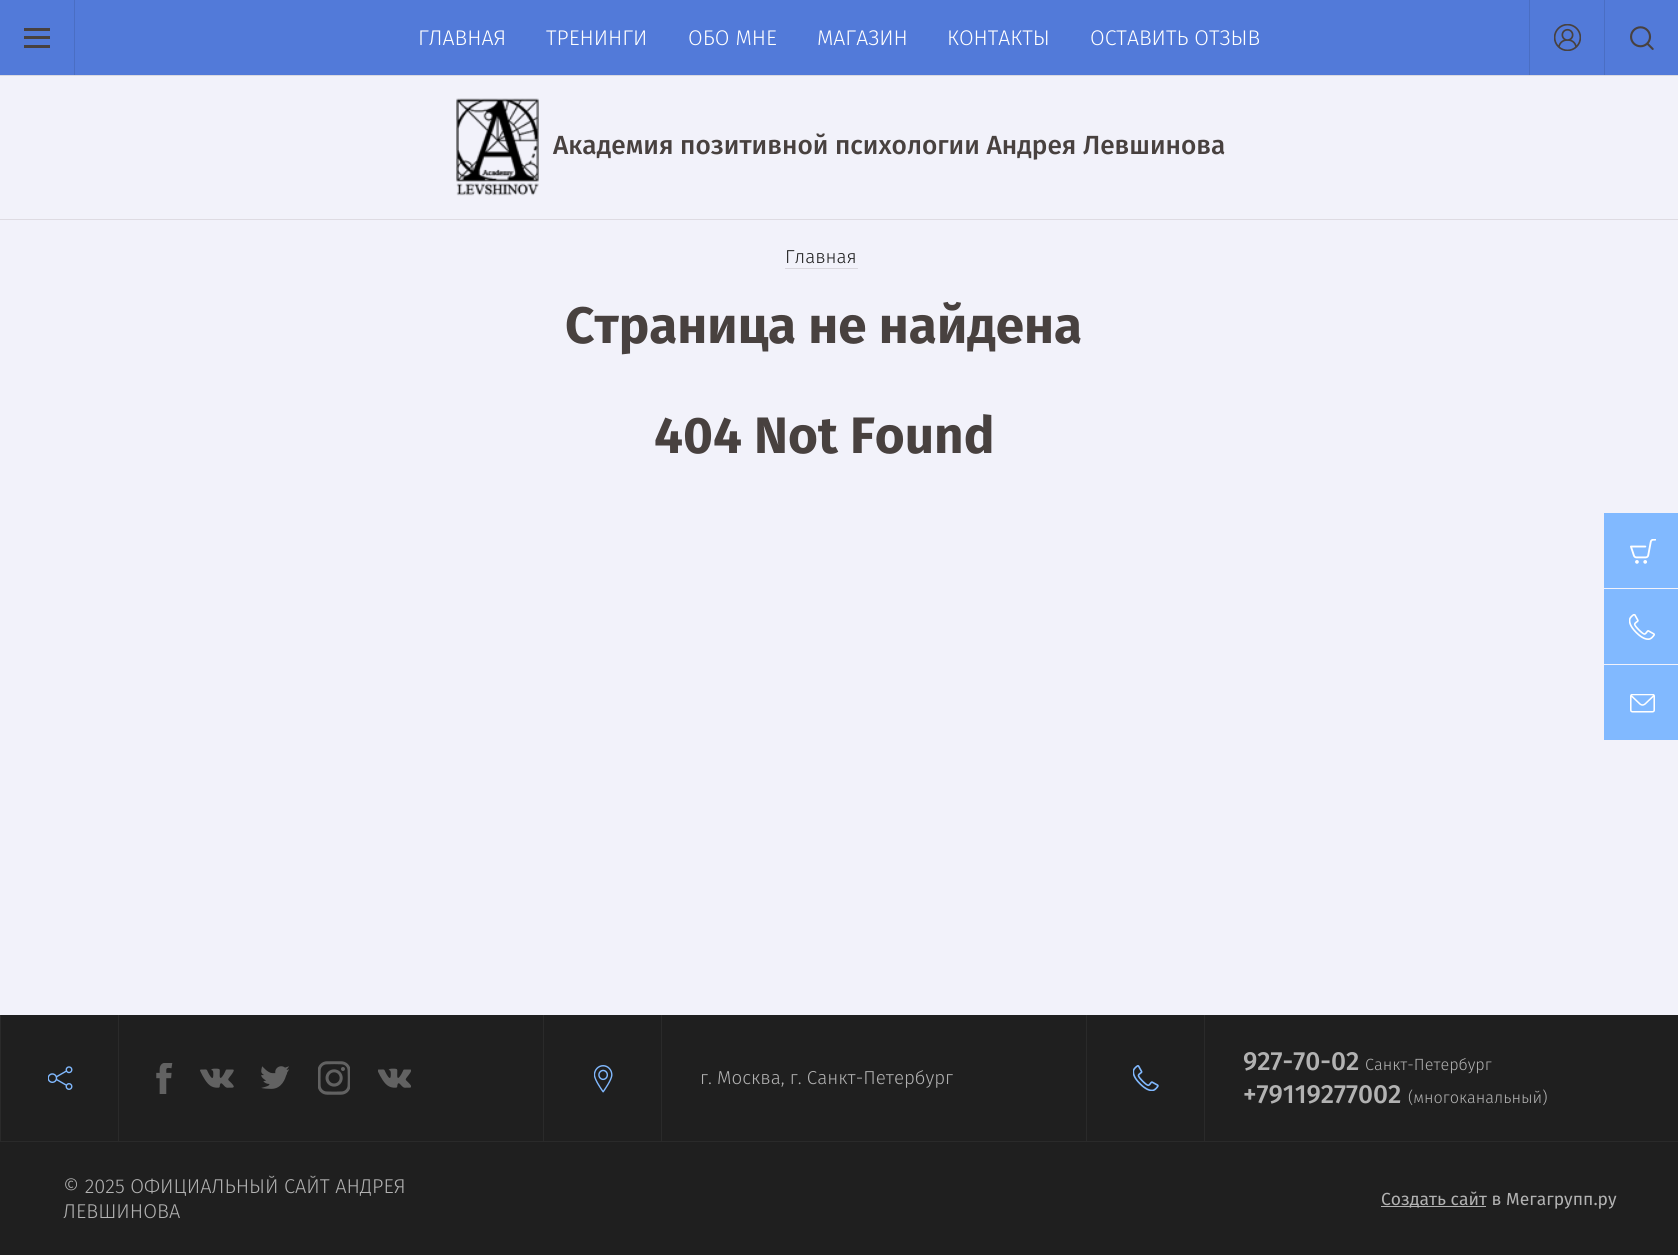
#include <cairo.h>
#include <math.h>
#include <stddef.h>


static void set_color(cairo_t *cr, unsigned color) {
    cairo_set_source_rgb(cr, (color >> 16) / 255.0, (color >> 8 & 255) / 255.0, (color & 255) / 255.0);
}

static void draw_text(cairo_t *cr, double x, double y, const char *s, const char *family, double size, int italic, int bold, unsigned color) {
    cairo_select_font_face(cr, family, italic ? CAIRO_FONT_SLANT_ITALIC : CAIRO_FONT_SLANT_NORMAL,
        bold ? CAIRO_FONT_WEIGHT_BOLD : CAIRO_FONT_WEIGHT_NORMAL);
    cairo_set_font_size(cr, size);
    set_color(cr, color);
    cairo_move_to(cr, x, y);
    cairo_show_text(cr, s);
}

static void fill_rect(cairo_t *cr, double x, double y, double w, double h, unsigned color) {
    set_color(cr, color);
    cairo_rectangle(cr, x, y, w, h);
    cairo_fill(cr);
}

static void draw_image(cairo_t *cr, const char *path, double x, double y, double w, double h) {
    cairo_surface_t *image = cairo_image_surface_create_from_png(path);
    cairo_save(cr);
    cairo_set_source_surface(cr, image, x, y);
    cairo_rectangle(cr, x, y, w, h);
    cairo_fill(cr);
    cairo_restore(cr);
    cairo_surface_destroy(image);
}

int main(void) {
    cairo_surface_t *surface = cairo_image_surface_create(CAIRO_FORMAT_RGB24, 1678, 1255);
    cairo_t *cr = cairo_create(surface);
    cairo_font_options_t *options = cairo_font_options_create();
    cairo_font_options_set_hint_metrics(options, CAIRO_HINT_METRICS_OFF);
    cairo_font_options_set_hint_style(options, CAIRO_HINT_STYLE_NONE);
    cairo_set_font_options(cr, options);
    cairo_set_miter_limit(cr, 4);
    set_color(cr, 0xF2F2FA);
    cairo_paint(cr);
    set_color(cr, 0xDADAE1);
    cairo_new_path(cr);
    cairo_move_to(cr, 0, 75);
    cairo_line_to(cr, 0, 76);
    cairo_line_to(cr, 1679, 76);
    cairo_line_to(cr, 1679, 1);
    cairo_line_to(cr, 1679, 75);
    cairo_close_path(cr);
    cairo_fill(cr);
    fill_rect(cr, 0, 0, 1678, 75, 0x527AD9);
    fill_rect(cr, 74, 0, 1, 75, 0x4A6EC3);
    fill_rect(cr, 24, 28, 26, 3, 0x48413F);
    fill_rect(cr, 24, 36, 26, 3, 0x48413F);
    fill_rect(cr, 24, 45, 26, 3, 0x48413F);
    draw_text(cr, 418, 45, "ГЛАВНАЯ", "Fira Sans Light", 21.25, 0, 0, 0xFFFFFF);
    draw_text(cr, 546, 45, "ТРЕНИНГИ", "Fira Sans Light", 21.25, 0, 0, 0xFFFFFF);
    draw_text(cr, 688, 45, "ОБО МНЕ", "Fira Sans Light", 21.25, 0, 0, 0xFFFFFF);
    draw_text(cr, 817, 45, "МАГАЗИН", "Fira Sans Light", 21.25, 0, 0, 0xFFFFFF);
    draw_text(cr, 947, 45, "КОНТАКТЫ", "Fira Sans Light", 21.25, 0, 0, 0xFFFFFF);
    draw_text(cr, 1090, 45, "ОСТАВИТЬ ОТЗЫВ", "Fira Sans Light", 21.25, 0, 0, 0xFFFFFF);
    draw_image(cr, "assets/img1.png", 1554, 24, 27, 27);
    fill_rect(cr, 1529, 0, 1, 75, 0x4A6EC3);
    draw_image(cr, "assets/img2.png", 1630, 26, 24, 24);
    fill_rect(cr, 1604, 0, 1, 75, 0x4A6EC3);
    fill_rect(cr, 0, 219, 1678, 1, 0xDEDBE2);
    draw_image(cr, "assets/img3.png", 456, 98, 83, 98);
    draw_text(cr, 553, 154, "Академия позитивной психологии Андрея Левшинова", "Fira Sans Medium", 26.25, 0, 0, 0x48413F);
    draw_text(cr, 785, 263, "Главная", "Fira Sans Light", 18.75, 0, 0, 0x1F1F1F);
    fill_rect(cr, 785, 268, 73, 1, 0xD9D7DE);
    draw_text(cr, 565, 343, "Страница не найдена", "Fira Sans", 51.25, 0, 1, 0x48413F);
    draw_text(cr, 654, 453, "404 Not Found", "Fira Sans", 51.25, 0, 1, 0x48413F);
    fill_rect(cr, 0, 1015, 1678, 240, 0x1F1F1F);
    fill_rect(cr, 0, 1141, 1678, 1, 0x2A2A2A);
    draw_image(cr, "assets/img4.png", 48, 1066, 25, 24);
    fill_rect(cr, 118, 1015, 1, 126, 0x2A2A2A);
    fill_rect(cr, 0, 1015, 1, 126, 0x2A2A2A);
    draw_image(cr, "assets/img5.png", 156, 1063, 17, 31);
    draw_image(cr, "assets/img6.png", 200, 1068, 34, 20);
    draw_image(cr, "assets/img7.png", 261, 1066, 28, 23);
    draw_image(cr, "assets/img8.png", 318, 1061, 32, 34);
    draw_image(cr, "assets/img9.png", 378, 1068, 33, 20);
    draw_image(cr, "assets/img10.png", 594, 1065, 19, 28);
    fill_rect(cr, 661, 1015, 1, 126, 0x2A2A2A);
    fill_rect(cr, 543, 1015, 1, 126, 0x2A2A2A);
    draw_text(cr, 700, 1084, "г. Москва, г. Санкт-Петербург", "Fira Sans Light", 18.75, 0, 0, 0xB2B2B2);
    draw_image(cr, "assets/img11.png", 1133, 1065, 26, 26);
    fill_rect(cr, 1204, 1015, 1, 126, 0x2A2A2A);
    fill_rect(cr, 1086, 1015, 1, 126, 0x2A2A2A);
    draw_text(cr, 1243, 1070, "927-70-02", "Fira Sans Medium", 26.25, 0, 0, 0xB2B2B2);
    draw_text(cr, 1365, 1070, "Санкт-Петербург", "Fira Sans Light", 16.25, 0, 0, 0xB2B2B2);
    draw_text(cr, 1243, 1103, "+79119277002", "Fira Sans Medium", 26.25, 0, 0, 0xB2B2B2);
    draw_text(cr, 1408, 1103, "(многоканальный)", "Fira Sans Light", 16.25, 0, 0, 0xB2B2B2);
    draw_text(cr, 63, 1193, "© 2025 ОФИЦИАЛЬНЫЙ САЙТ АНДРЕЯ", "Fira Sans Light", 20, 0, 0, 0xB2B2B2);
    draw_text(cr, 63, 1218, "ЛЕВШИНОВА", "Fira Sans Light", 20, 0, 0, 0xB2B2B2);
    fill_rect(cr, 1381, 1206, 105, 1, 0xB2B2B2);
    draw_text(cr, 1381, 1205, "Создать сайт в Мегагрупп.ру", "Fira Sans", 17.5, 0, 0, 0xB2B2B2);
    fill_rect(cr, 1604, 513, 74, 75, 0x81B9FF);
    draw_image(cr, "assets/img12.png", 1630, 539, 26, 25);
    fill_rect(cr, 1604, 589, 74, 75, 0x81B9FF);
    draw_image(cr, "assets/img13.png", 1629, 614, 26, 26);
    fill_rect(cr, 1604, 665, 74, 75, 0x81B9FF);
    draw_image(cr, "assets/img14.png", 1630, 694, 25, 19);
    cairo_surface_write_to_png(surface, "output.png");
    cairo_font_options_destroy(options);
    cairo_destroy(cr);
    cairo_surface_destroy(surface);
    return 0;
}
